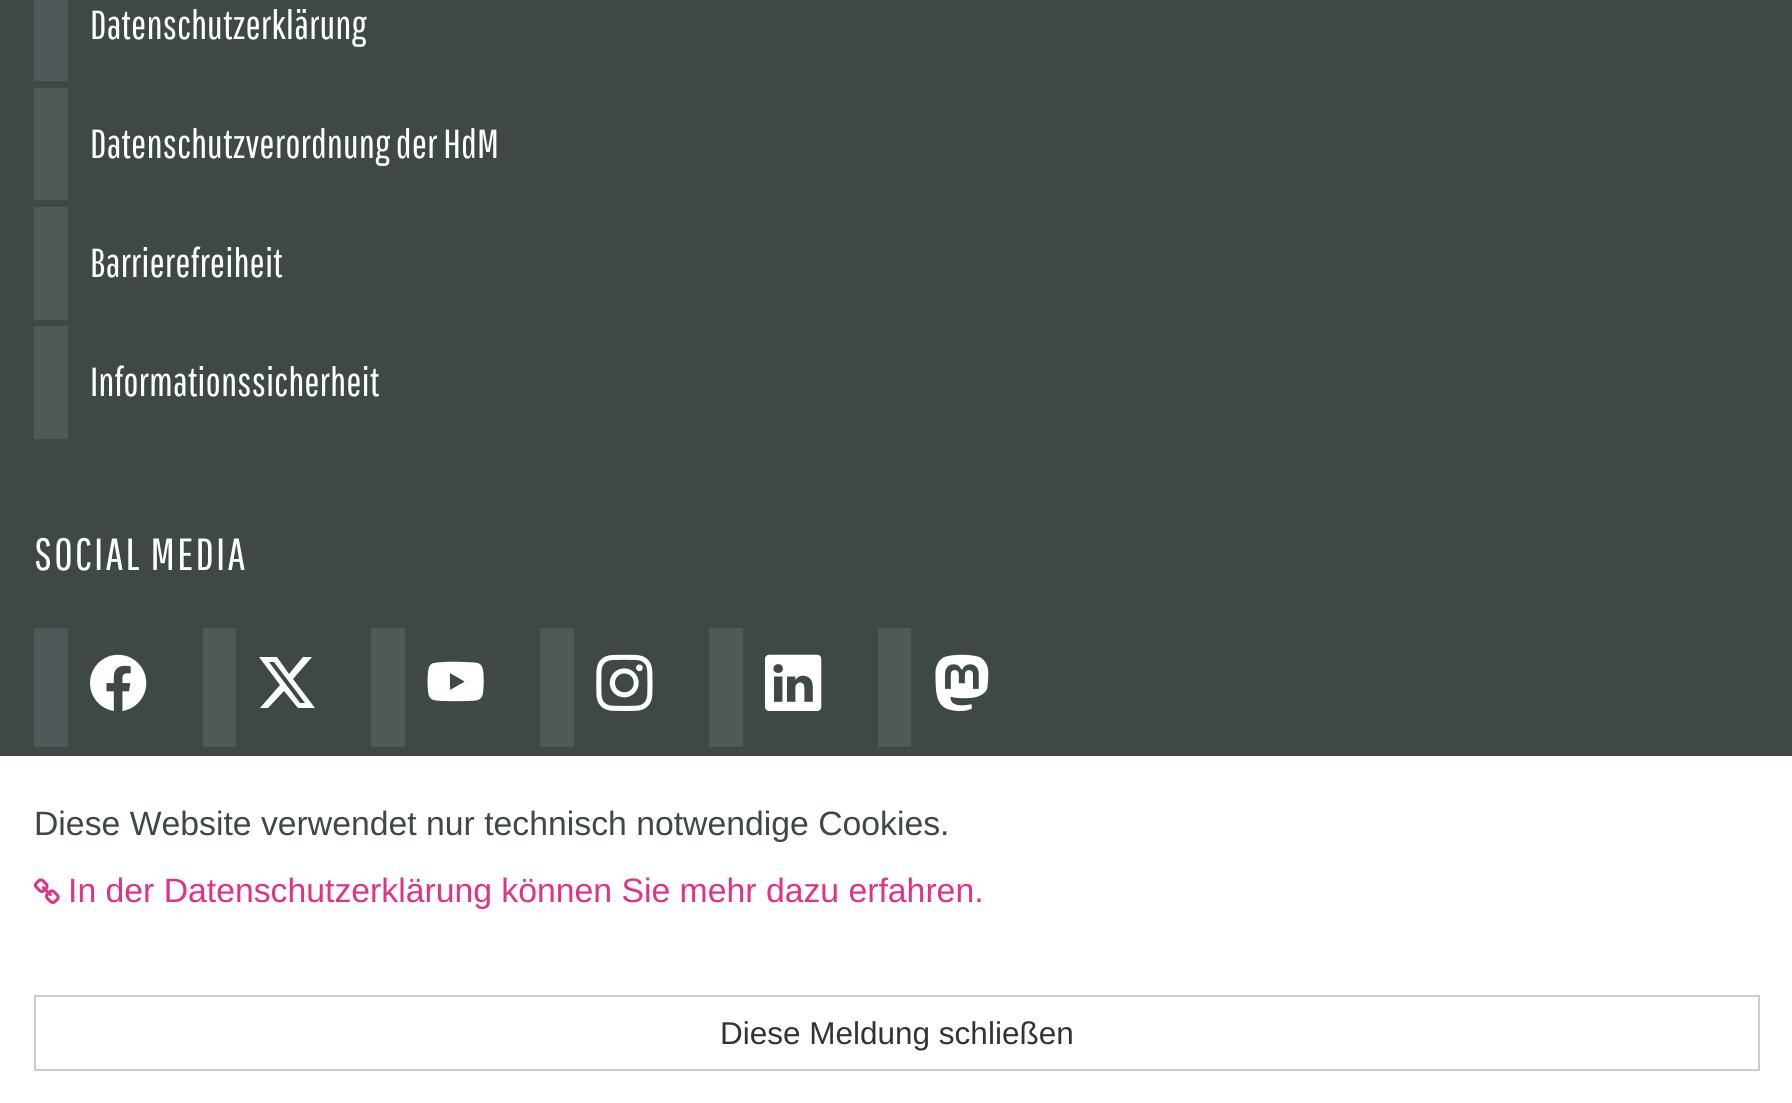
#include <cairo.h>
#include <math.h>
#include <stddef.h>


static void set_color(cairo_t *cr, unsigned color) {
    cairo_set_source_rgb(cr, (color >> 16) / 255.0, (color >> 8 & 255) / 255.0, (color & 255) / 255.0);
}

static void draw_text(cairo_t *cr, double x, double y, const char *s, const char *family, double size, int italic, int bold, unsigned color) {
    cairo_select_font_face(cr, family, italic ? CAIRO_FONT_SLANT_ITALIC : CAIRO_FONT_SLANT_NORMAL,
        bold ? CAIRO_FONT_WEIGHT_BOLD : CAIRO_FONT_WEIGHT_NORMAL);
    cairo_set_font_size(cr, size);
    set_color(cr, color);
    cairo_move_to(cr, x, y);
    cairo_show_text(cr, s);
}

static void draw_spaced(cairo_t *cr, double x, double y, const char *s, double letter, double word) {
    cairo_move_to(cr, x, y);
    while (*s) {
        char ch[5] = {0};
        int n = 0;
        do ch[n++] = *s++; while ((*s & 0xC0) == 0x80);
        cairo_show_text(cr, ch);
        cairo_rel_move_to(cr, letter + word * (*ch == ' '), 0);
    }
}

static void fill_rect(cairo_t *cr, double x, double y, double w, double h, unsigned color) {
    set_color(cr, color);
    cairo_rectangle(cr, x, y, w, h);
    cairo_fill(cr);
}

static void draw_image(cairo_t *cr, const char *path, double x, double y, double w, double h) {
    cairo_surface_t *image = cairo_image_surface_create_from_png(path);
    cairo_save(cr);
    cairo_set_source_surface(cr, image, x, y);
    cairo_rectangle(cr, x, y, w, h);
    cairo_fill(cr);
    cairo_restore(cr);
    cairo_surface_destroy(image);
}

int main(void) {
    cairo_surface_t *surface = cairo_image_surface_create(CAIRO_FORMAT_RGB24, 1792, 1103);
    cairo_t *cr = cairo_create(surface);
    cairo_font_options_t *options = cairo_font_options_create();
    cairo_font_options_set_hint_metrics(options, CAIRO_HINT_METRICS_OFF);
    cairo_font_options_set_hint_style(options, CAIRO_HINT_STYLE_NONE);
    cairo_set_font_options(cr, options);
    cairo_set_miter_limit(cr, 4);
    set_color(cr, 0x3E4847);
    cairo_paint(cr);
    fill_rect(cr, 34, 0, 34, 81, 0x505959);
    draw_text(cr, 90, 39, "Datenschutzerklärung", "Pathway Gothic One", 40.5, 0, 0, 0xFFFFFF);
    fill_rect(cr, 34, 88, 34, 112, 0x505958);
    draw_text(cr, 90, 158, "Datenschutzverordnung der HdM", "Pathway Gothic One", 40.5, 0, 0, 0xFFFFFF);
    cairo_set_source_rgba(cr, 0.965, 0.965, 0.965, 0.1);
    cairo_rectangle(cr, 34, 207, 34, 113);
    cairo_fill(cr);
    draw_text(cr, 90, 277, "Barrierefreiheit", "Pathway Gothic One", 40.5, 0, 0, 0xFFFFFF);
    fill_rect(cr, 34, 326, 34, 113, 0x505958);
    draw_text(cr, 90, 396, "Informationssicherheit", "Pathway Gothic One", 40.5, 0, 0, 0xFFFFFF);
    cairo_set_font_size(cr, 45);
    draw_spaced(cr, 34, 570, "SOCIAL MEDIA", 2.25, 0);
    fill_rect(cr, 34, 628, 34, 119, 0x505959);
    draw_image(cr, "assets/img1.png", 90, 654, 57, 57);
    fill_rect(cr, 203, 628, 33, 119, 0x505958);
    set_color(cr, 0xFFFFFF);
    cairo_new_path(cr);
    cairo_move_to(cr, 303, 657);
    cairo_line_to(cr, 312, 657);
    cairo_line_to(cr, 293, 679);
    cairo_line_to(cr, 315, 708);
    cairo_line_to(cr, 298, 708);
    cairo_line_to(cr, 284, 691);
    cairo_line_to(cr, 268, 708);
    cairo_line_to(cr, 260, 708);
    cairo_line_to(cr, 280, 685);
    cairo_line_to(cr, 259, 657);
    cairo_line_to(cr, 277, 657);
    cairo_line_to(cr, 289, 674);
    cairo_close_path(cr);
    cairo_move_to(cr, 300, 703);
    cairo_line_to(cr, 305, 703);
    cairo_line_to(cr, 274, 662);
    cairo_line_to(cr, 269, 662);
    cairo_close_path(cr);
    cairo_fill(cr);
    fill_rect(cr, 371, 628, 34, 119, 0x505958);
    draw_image(cr, "assets/img2.png", 427, 661, 57, 41);
    fill_rect(cr, 540, 628, 34, 119, 0x505958);
    draw_image(cr, "assets/img3.png", 596, 654, 57, 57);
    fill_rect(cr, 709, 628, 34, 119, 0x505958);
    draw_image(cr, "assets/img4.png", 765, 654, 57, 57);
    fill_rect(cr, 878, 628, 33, 119, 0x505958);
    draw_image(cr, "assets/img5.png", 935, 654, 54, 58);
    fill_rect(cr, 0, 756, 1792, 347, 0xFFFFFF);
    draw_text(cr, 34, 835, "Diese Website verwendet nur technisch notwendige Cookies.", "Liberation Sans", 33.75, 0, 0, 0x3E4847);
    draw_image(cr, "assets/img6.png", 34, 878, 26, 26);
    draw_text(cr, 68, 902, "In der Datenschutzerklärung können Sie mehr dazu erfahren.", "Liberation Sans", 33.75, 0, 0, 0xE13288);
    cairo_rectangle(cr, 35, 996, 1724, 74);
    set_color(cr, 0xCCCCCC);
    cairo_stroke(cr);
    draw_text(cr, 720, 1044, "Diese Meldung schließen", "Liberation Sans", 31.5, 0, 0, 0x333333);
    cairo_surface_write_to_png(surface, "output.png");
    cairo_font_options_destroy(options);
    cairo_destroy(cr);
    cairo_surface_destroy(surface);
    return 0;
}
